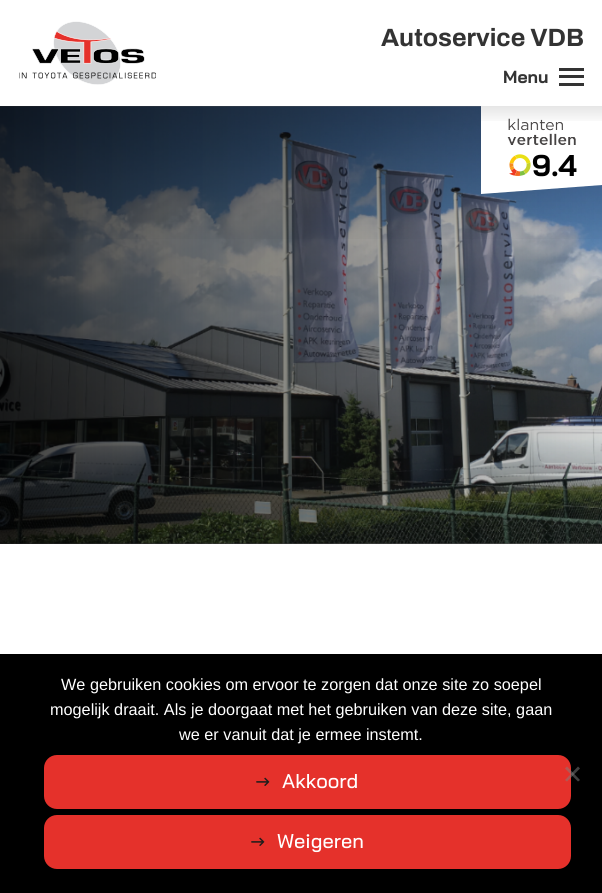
#include <cairo.h>
#include <math.h>
#include <stddef.h>


static void set_color(cairo_t *cr, unsigned color) {
    cairo_set_source_rgb(cr, (color >> 16) / 255.0, (color >> 8 & 255) / 255.0, (color & 255) / 255.0);
}

static void draw_text(cairo_t *cr, double x, double y, const char *s, const char *family, double size, int italic, int bold, unsigned color) {
    cairo_select_font_face(cr, family, italic ? CAIRO_FONT_SLANT_ITALIC : CAIRO_FONT_SLANT_NORMAL,
        bold ? CAIRO_FONT_WEIGHT_BOLD : CAIRO_FONT_WEIGHT_NORMAL);
    cairo_set_font_size(cr, size);
    set_color(cr, color);
    cairo_move_to(cr, x, y);
    cairo_show_text(cr, s);
}

static void fill_rect(cairo_t *cr, double x, double y, double w, double h, unsigned color) {
    set_color(cr, color);
    cairo_rectangle(cr, x, y, w, h);
    cairo_fill(cr);
}

static void rounded_rect(cairo_t *cr, double x, double y, double w, double h, double r) {
    cairo_new_sub_path(cr);
    cairo_arc(cr, x + w - r, y + h - r, r, 0, M_PI / 2);
    cairo_arc(cr, x + r, y + h - r, r, M_PI / 2, M_PI);
    cairo_arc(cr, x + r, y + r, r, M_PI, 1.5 * M_PI);
    cairo_arc(cr, x + w - r, y + r, r, 1.5 * M_PI, 2 * M_PI);
    cairo_close_path(cr);
}

static void draw_image(cairo_t *cr, const char *path, double x, double y, double w, double h) {
    cairo_surface_t *image = cairo_image_surface_create_from_png(path);
    cairo_save(cr);
    cairo_set_source_surface(cr, image, x, y);
    cairo_rectangle(cr, x, y, w, h);
    cairo_fill(cr);
    cairo_restore(cr);
    cairo_surface_destroy(image);
}

int main(void) {
    cairo_surface_t *surface = cairo_image_surface_create(CAIRO_FORMAT_RGB24, 602, 893);
    cairo_t *cr = cairo_create(surface);
    cairo_font_options_t *options = cairo_font_options_create();
    cairo_font_options_set_hint_metrics(options, CAIRO_HINT_METRICS_OFF);
    cairo_font_options_set_hint_style(options, CAIRO_HINT_STYLE_NONE);
    cairo_set_font_options(cr, options);
    cairo_set_miter_limit(cr, 4);
    cairo_pattern_t *gradient;
    set_color(cr, 0xFFFFFF);
    cairo_paint(cr);
    draw_image(cr, "assets/img1.png", 19, 21, 137, 64);
    draw_text(cr, 381, 46, "Autoservice VDB", "Archivo", 25, 0, 1, 0x333333);
    fill_rect(cr, 559, 68, 25, 3, 0x333333);
    draw_text(cr, 503, 83, "Menu", "Bai Jamjuree", 17.5, 0, 1, 0x333333);
    fill_rect(cr, 559, 75, 25, 3, 0x333333);
    fill_rect(cr, 559, 83, 25, 3, 0x333333);
    draw_image(cr, "assets/img2.png", 0, 106, 602, 438);
    gradient = cairo_pattern_create_linear(301, 250, 301, 0);
    cairo_pattern_add_color_stop_rgba(gradient, 0, 0, 0, 0, 0);
    cairo_pattern_add_color_stop_rgba(gradient, 1, 0, 0, 0, 0.5);
    cairo_set_source(cr, gradient);
    cairo_pattern_destroy(gradient);
    cairo_rectangle(cr, 0, 106, 602, 133);
    cairo_fill(cr);
    gradient = cairo_pattern_create_linear(0, 325, 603, 325);
    cairo_pattern_add_color_stop_rgba(gradient, 0, 0, 0, 0, 0.75);
    cairo_pattern_add_color_stop_rgba(gradient, 1, 0.114, 0.114, 0.106, 0.19);
    cairo_set_source(cr, gradient);
    cairo_pattern_destroy(gradient);
    cairo_rectangle(cr, 0, 106, 602, 438);
    cairo_fill(cr);
    set_color(cr, 0xFFFFFF);
    cairo_new_path(cr);
    cairo_move_to(cr, 481, 106);
    cairo_line_to(cr, 481, 194);
    cairo_line_to(cr, 602, 185);
    cairo_line_to(cr, 602, 106);
    cairo_close_path(cr);
    cairo_fill(cr);
    draw_image(cr, "assets/img3.png", 507, 118, 69, 27);
    gradient = cairo_pattern_create_linear(542, 106, 542, 125);
    cairo_pattern_add_color_stop_rgba(gradient, 0, 0, 0, 0, 0.1);
    cairo_pattern_add_color_stop_rgba(gradient, 1, 0, 0, 0, 0);
    cairo_set_source(cr, gradient);
    cairo_pattern_destroy(gradient);
    cairo_rectangle(cr, 481, 106, 121, 15);
    cairo_fill(cr);
    draw_image(cr, "assets/img4.png", 509, 154, 22, 22);
    draw_text(cr, 532, 176, "9.4", "Bai Jamjuree", 30, 0, 1, 0x000000);
    fill_rect(cr, 0, 654, 602, 239, 0x000000);
    draw_text(cr, 61, 690, "We gebruiken cookies om ervoor te zorgen dat onze site zo soepel", "Liberation Sans", 16.25, 0, 0, 0xFFFFFF);
    draw_text(cr, 50, 715, "mogelijk draait. Als je doorgaat met het gebruiken van deze site, gaan", "Liberation Sans", 16.25, 0, 0, 0xFFFFFF);
    draw_text(cr, 179, 740, "we er vanuit dat je ermee instemt.", "Liberation Sans", 16.25, 0, 0, 0xFFFFFF);
    set_color(cr, 0xE5312B);
    rounded_rect(cr, 44, 755, 527, 54, 13);
    cairo_fill(cr);
    draw_image(cr, "assets/img5.png", 256, 777, 14, 9);
    draw_text(cr, 282, 788, "Akkoord", "Bai Jamjuree Medium", 20, 0, 0, 0xFFFFFF);
    set_color(cr, 0xE5312B);
    rounded_rect(cr, 44, 815, 527, 54, 13);
    cairo_fill(cr);
    draw_image(cr, "assets/img5.png", 251, 837, 14, 9);
    draw_text(cr, 277, 848, "Weigeren", "Bai Jamjuree Medium", 20, 0, 0, 0xFFFFFF);
    cairo_set_source_rgba(cr, 0.502, 0.502, 0.502, 0.5);
    cairo_new_path(cr);
    cairo_move_to(cr, 578, 766.5);
    cairo_line_to(cr, 580, 768.5);
    cairo_line_to(cr, 567, 781.5);
    cairo_line_to(cr, 565, 780);
    cairo_close_path(cr);
    cairo_fill(cr);
    cairo_new_path(cr);
    cairo_move_to(cr, 565, 768.5);
    cairo_line_to(cr, 567, 766.5);
    cairo_line_to(cr, 580, 780);
    cairo_line_to(cr, 578, 781.5);
    cairo_close_path(cr);
    cairo_fill(cr);
    cairo_surface_write_to_png(surface, "output.png");
    cairo_font_options_destroy(options);
    cairo_destroy(cr);
    cairo_surface_destroy(surface);
    return 0;
}
